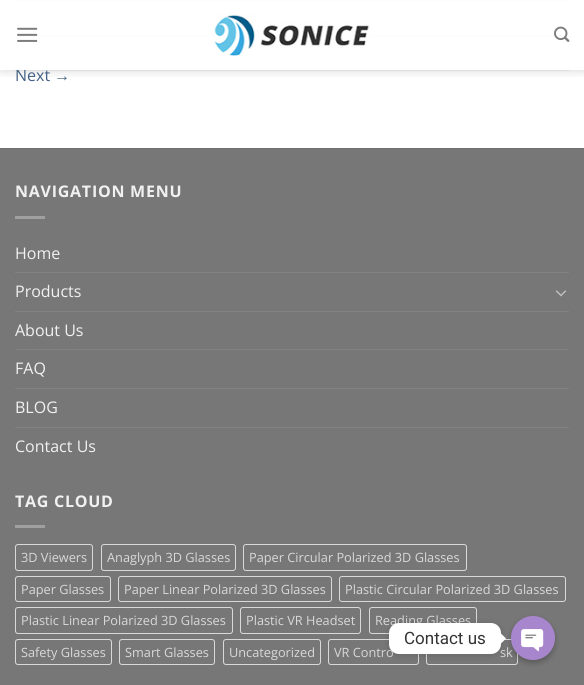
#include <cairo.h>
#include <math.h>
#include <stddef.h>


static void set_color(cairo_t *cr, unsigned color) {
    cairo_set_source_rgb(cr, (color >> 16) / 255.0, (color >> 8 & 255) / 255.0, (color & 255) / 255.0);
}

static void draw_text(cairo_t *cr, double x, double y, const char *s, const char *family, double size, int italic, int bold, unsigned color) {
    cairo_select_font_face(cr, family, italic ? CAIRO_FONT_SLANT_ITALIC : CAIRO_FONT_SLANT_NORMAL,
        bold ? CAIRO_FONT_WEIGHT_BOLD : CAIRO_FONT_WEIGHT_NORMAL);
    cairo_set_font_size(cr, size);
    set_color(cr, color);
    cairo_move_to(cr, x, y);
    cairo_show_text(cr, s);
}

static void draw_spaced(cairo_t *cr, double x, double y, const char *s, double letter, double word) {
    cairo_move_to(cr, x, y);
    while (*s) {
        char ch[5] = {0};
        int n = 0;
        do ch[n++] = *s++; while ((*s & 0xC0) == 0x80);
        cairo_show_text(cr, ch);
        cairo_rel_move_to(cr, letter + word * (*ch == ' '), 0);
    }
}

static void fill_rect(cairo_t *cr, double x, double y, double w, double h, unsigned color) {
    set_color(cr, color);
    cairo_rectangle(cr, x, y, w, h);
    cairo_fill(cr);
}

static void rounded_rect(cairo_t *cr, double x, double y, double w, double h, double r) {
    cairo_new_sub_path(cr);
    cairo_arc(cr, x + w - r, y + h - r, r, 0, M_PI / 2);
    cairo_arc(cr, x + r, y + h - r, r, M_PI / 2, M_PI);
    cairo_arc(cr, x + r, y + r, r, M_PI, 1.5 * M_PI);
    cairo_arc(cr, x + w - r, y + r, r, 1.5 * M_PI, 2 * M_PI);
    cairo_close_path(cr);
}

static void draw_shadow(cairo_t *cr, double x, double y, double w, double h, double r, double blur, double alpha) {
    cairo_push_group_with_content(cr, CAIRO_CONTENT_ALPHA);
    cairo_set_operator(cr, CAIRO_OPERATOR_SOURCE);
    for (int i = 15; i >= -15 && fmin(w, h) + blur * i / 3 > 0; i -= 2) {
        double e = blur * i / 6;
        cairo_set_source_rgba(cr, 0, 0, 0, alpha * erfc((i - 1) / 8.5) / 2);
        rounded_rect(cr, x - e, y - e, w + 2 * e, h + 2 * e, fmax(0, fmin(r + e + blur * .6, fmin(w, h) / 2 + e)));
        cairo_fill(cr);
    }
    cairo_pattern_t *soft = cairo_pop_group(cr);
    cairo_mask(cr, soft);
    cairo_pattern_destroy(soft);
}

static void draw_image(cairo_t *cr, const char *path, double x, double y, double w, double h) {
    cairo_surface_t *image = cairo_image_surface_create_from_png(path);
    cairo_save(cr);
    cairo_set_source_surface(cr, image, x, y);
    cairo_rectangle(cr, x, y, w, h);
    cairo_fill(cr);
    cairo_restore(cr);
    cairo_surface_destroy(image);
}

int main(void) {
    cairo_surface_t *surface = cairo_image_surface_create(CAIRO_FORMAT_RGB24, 584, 685);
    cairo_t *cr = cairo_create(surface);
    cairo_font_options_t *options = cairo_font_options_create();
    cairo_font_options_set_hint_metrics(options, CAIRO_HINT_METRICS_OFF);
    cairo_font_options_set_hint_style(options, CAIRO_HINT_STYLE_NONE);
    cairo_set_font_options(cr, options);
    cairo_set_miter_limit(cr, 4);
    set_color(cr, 0xFFFFFF);
    cairo_paint(cr);
    fill_rect(cr, 15, 0, 554, 1, 0xECECEC);
    fill_rect(cr, 15, 35, 554, 2, 0xECECEC);
    cairo_save(cr);
    cairo_rectangle(cr, 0, 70, 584, 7);
    cairo_clip(cr);
    set_color(cr, 0x000000);
    draw_shadow(cr, 1, 1, 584, 70, 0, 5, 0.15);
    cairo_restore(cr);
    draw_text(cr, 15, 81, "Next", "Open Sans", 16, 0, 0, 0x446084);
    cairo_set_source_rgba(cr, 1, 1, 1, 0.9);
    cairo_rectangle(cr, 15, 0, 554, 70);
    cairo_fill(cr);
    draw_image(cr, "assets/img1.png", 17, 27, 21, 15);
    draw_image(cr, "assets/img2.png", 207, 12, 163, 44);
    draw_image(cr, "assets/img3.png", 554, 26, 16, 16);
    cairo_set_source_rgba(cr, 0.467, 0.467, 0.467, 0.1);
    cairo_rectangle(cr, 15, 70, 554, 1);
    cairo_fill(cr);
    draw_text(cr, 54, 81, "→", "Liberation Sans", 16, 0, 0, 0x446084);
    fill_rect(cr, 0, 149, 584, 536, 0x777777);
    fill_rect(cr, 0, 148, 584, 1, 0x717171);
    cairo_select_font_face(cr, "Open Sans", CAIRO_FONT_SLANT_NORMAL, CAIRO_FONT_WEIGHT_BOLD);
    set_color(cr, 0xF1F1F1);
    draw_spaced(cr, 15, 197, "NAVIGATION MENU", 0.75, 0);
    fill_rect(cr, 15, 216, 30, 3, 0xA0A0A0);
    draw_text(cr, 15, 259, "Home", "Open Sans", 16, 0, 0, 0xF1F1F1);
    fill_rect(cr, 15, 272, 554, 1, 0x828282);
    draw_text(cr, 15, 297, "Products", "Open Sans", 16, 0, 0, 0xF1F1F1);
    draw_image(cr, "assets/img4.png", 555, 290, 12, 7);
    fill_rect(cr, 15, 311, 554, 1, 0x828282);
    draw_text(cr, 15, 336, "About Us", "Open Sans", 16, 0, 0, 0xF1F1F1);
    fill_rect(cr, 15, 349, 554, 1, 0x828282);
    draw_text(cr, 15, 374, "FAQ", "Open Sans", 16, 0, 0, 0xF1F1F1);
    fill_rect(cr, 15, 388, 554, 1, 0x828282);
    draw_text(cr, 15, 413, "BLOG", "Open Sans", 16, 0, 0, 0xF1F1F1);
    fill_rect(cr, 15, 427, 554, 1, 0x828282);
    draw_text(cr, 15, 452, "Contact Us", "Open Sans", 16, 0, 0, 0xF1F1F1);
    cairo_select_font_face(cr, "Open Sans", CAIRO_FONT_SLANT_NORMAL, CAIRO_FONT_WEIGHT_BOLD);
    draw_spaced(cr, 15, 507, "TAG CLOUD", 0.75, 0);
    fill_rect(cr, 15, 525, 30, 3, 0xA0A0A0);
    rounded_rect(cr, 15.5, 544.5, 77, 26, 2.5);
    set_color(cr, 0xD9D9D9);
    cairo_set_line_width(cr, 1);
    cairo_stroke(cr);
    draw_text(cr, 21, 562, "3D Viewers", "Open Sans", 12.75, 0, 0, 0xD9D9D9);
    rounded_rect(cr, 101.5, 544.5, 134, 26, 2.5);
    cairo_stroke(cr);
    draw_text(cr, 107, 562, "Anaglyph 3D Glasses", "Open Sans", 12.75, 0, 0, 0xD9D9D9);
    rounded_rect(cr, 243.5, 544.5, 223, 26, 2.5);
    cairo_stroke(cr);
    draw_text(cr, 249, 562, "Paper Circular Polarized 3D Glasses", "Open Sans", 12.75, 0, 0, 0xD9D9D9);
    rounded_rect(cr, 15.5, 576.5, 95, 25, 2.5);
    cairo_stroke(cr);
    draw_text(cr, 21, 594, "Paper Glasses", "Open Sans", 12.75, 0, 0, 0xD9D9D9);
    rounded_rect(cr, 118.5, 576.5, 213, 25, 2.5);
    cairo_stroke(cr);
    draw_text(cr, 124, 594, "Paper Linear Polarized 3D Glasses", "Open Sans", 12.75, 0, 0, 0xD9D9D9);
    rounded_rect(cr, 339.5, 576.5, 226, 25, 2.5);
    cairo_stroke(cr);
    draw_text(cr, 345, 594, "Plastic Circular Polarized 3D Glasses", "Open Sans", 12.75, 0, 0, 0xD9D9D9);
    rounded_rect(cr, 15.5, 607.5, 217, 26, 2.5);
    cairo_stroke(cr);
    draw_text(cr, 21, 625, "Plastic Linear Polarized 3D Glasses", "Open Sans", 12.75, 0, 0, 0xD9D9D9);
    rounded_rect(cr, 240.5, 607.5, 120, 26, 2.5);
    cairo_stroke(cr);
    draw_text(cr, 246, 625, "Plastic VR Headset", "Open Sans", 12.75, 0, 0, 0xD9D9D9);
    rounded_rect(cr, 369.5, 607.5, 107, 26, 2.5);
    cairo_stroke(cr);
    draw_text(cr, 375, 625, "Reading Glasses", "Open Sans", 12.75, 0, 0, 0xD9D9D9);
    rounded_rect(cr, 15.5, 639.5, 96, 25, 2.5);
    cairo_stroke(cr);
    draw_text(cr, 21, 657, "Safety Glasses", "Open Sans", 12.75, 0, 0, 0xD9D9D9);
    rounded_rect(cr, 119.5, 639.5, 95, 25, 2.5);
    cairo_stroke(cr);
    draw_text(cr, 125, 657, "Smart Glasses", "Open Sans", 12.75, 0, 0, 0xD9D9D9);
    rounded_rect(cr, 223.5, 639.5, 97, 25, 2.5);
    cairo_stroke(cr);
    draw_text(cr, 229, 657, "Uncategorized", "Open Sans", 12.75, 0, 0, 0xD9D9D9);
    rounded_rect(cr, 328.5, 639.5, 90, 25, 2.5);
    cairo_stroke(cr);
    draw_text(cr, 334, 657, "VR Contro", "Open Sans", 12.75, 0, 0, 0xD9D9D9);
    rounded_rect(cr, 426.5, 639.5, 91, 25, 2.5);
    cairo_stroke(cr);
    draw_text(cr, 500, 657, "sk", "Open Sans", 12.75, 0, 0, 0xD9D9D9);
    set_color(cr, 0x000000);
    draw_shadow(cr, 389, 624, 112, 31, 10, 4, 0.15);
    set_color(cr, 0xFFFFFF);
    rounded_rect(cr, 389, 623, 112, 31, 10);
    cairo_fill(cr);
    draw_text(cr, 404, 644, "Contact us", "Roboto", 17, 0, 0, 0x333333);
    set_color(cr, 0xFFFFFF);
    cairo_new_path(cr);
    cairo_move_to(cr, 501, 643.5);
    cairo_line_to(cr, 501, 633.5);
    cairo_line_to(cr, 506, 638.5);
    cairo_close_path(cr);
    cairo_fill(cr);
    set_color(cr, 0x000000);
    draw_shadow(cr, 511, 619, 44, 44, 22, 3, 0.25);
    draw_image(cr, "assets/img5.png", 511, 616, 44, 44);
    cairo_surface_write_to_png(surface, "output.png");
    cairo_font_options_destroy(options);
    cairo_destroy(cr);
    cairo_surface_destroy(surface);
    return 0;
}
